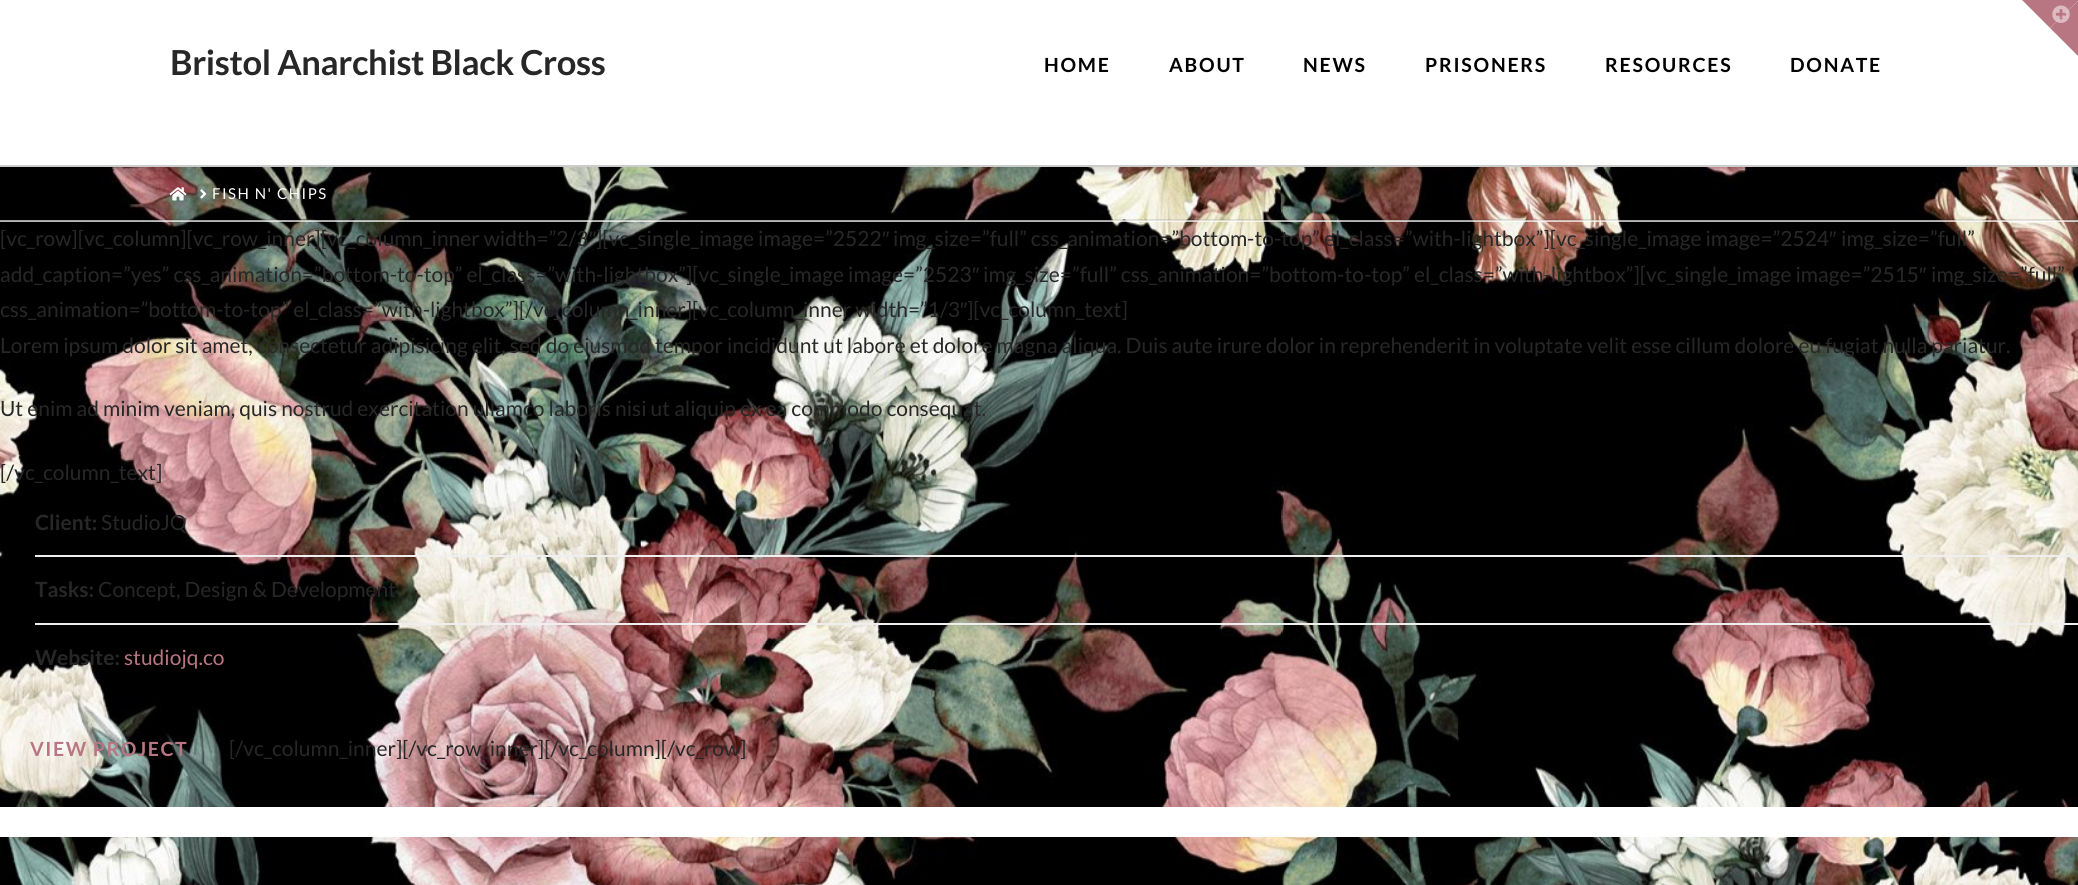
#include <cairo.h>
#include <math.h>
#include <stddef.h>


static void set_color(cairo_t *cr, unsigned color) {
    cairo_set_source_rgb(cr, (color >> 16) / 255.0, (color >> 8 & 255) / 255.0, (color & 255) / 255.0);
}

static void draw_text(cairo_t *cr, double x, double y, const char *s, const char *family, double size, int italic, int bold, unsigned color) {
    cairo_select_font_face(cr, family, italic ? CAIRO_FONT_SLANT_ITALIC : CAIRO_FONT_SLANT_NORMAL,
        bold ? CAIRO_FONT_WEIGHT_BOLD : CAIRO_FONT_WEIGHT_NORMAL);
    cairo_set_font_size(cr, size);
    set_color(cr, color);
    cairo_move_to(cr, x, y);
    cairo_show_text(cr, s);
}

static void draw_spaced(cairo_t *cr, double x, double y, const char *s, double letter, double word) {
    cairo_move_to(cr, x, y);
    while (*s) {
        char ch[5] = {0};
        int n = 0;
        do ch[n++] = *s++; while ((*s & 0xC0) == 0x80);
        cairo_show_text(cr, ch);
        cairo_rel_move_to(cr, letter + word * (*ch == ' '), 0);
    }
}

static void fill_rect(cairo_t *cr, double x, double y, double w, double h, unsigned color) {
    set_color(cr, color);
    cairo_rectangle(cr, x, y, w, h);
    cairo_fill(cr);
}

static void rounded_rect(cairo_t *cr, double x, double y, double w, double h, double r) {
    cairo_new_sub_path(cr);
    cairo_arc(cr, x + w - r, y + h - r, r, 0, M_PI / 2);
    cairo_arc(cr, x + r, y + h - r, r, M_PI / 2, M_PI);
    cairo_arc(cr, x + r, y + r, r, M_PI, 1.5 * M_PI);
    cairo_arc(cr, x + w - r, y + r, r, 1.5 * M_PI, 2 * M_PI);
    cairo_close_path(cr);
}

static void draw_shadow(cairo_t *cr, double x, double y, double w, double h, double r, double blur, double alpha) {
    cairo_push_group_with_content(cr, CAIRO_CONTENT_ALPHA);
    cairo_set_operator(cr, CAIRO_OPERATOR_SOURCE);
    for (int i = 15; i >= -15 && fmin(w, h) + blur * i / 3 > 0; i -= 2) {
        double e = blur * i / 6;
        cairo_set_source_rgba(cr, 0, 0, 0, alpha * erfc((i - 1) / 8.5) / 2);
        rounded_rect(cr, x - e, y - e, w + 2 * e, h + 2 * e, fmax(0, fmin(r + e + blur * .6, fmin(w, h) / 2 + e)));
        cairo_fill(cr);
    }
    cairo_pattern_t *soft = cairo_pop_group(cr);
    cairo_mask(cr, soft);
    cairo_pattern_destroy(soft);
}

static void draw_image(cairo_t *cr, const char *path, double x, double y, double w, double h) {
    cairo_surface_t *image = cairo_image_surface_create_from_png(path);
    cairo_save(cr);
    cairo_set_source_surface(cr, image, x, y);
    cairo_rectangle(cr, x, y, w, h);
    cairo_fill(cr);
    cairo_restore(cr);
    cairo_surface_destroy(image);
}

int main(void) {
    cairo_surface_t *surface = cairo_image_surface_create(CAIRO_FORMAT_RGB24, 2078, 885);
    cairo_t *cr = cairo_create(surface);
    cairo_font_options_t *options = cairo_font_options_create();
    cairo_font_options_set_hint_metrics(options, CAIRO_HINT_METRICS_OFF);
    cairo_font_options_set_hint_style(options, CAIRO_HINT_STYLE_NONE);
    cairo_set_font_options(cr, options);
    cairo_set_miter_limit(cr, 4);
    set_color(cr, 0xFFFFFF);
    cairo_paint(cr);
    draw_image(cr, "assets/img4.png", 0, 167, 2078, 718);
    set_color(cr, 0x000000);
    draw_shadow(cr, 0, 3, 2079, 167, 0, 3.5, 0.13);
    fill_rect(cr, 0, 0, 2078, 165, 0xFFFFFF);
    set_color(cr, 0xB87683);
    cairo_new_path(cr);
    cairo_move_to(cr, 2022, 0);
    cairo_line_to(cr, 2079, 0);
    cairo_line_to(cr, 2050, 28);
    cairo_close_path(cr);
    cairo_fill(cr);
    cairo_new_path(cr);
    cairo_move_to(cr, 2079, 0);
    cairo_line_to(cr, 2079, 57);
    cairo_line_to(cr, 2050, 28);
    cairo_close_path(cr);
    cairo_fill(cr);
    draw_image(cr, "assets/img1.png", 2052, 5, 18, 18);
    fill_rect(cr, 0, 165, 2078, 2, 0xCCCCCC);
    cairo_select_font_face(cr, "Lato", CAIRO_FONT_SLANT_NORMAL, CAIRO_FONT_WEIGHT_BOLD);
    cairo_set_font_size(cr, 34.5);
    set_color(cr, 0x272727);
    draw_spaced(cr, 170, 75, "Bristol Anarchist Black Cross", -0.35, 0);
    cairo_set_font_size(cr, 19.5);
    set_color(cr, 0x000000);
    draw_spaced(cr, 1044, 72, "HOME", 1.75, 0);
    draw_spaced(cr, 1169, 72, "ABOUT", 1.75, 0);
    draw_spaced(cr, 1303, 72, "NEWS", 1.75, 0);
    draw_spaced(cr, 1425, 72, "PRISONERS", 1.75, 0);
    draw_spaced(cr, 1605, 72, "RESOURCES", 1.75, 0);
    draw_spaced(cr, 1790, 72, "DONATE", 1.75, 0);
    cairo_set_source_rgba(cr, 1, 1, 1, 0.71);
    cairo_rectangle(cr, 0, 220, 2078, 2);
    cairo_fill(cr);
    cairo_set_source_rgba(cr, 0, 0, 0, 0.1);
    cairo_rectangle(cr, 0, 219, 2078, 2);
    cairo_fill(cr);
    draw_image(cr, "assets/img2.png", 169, 187, 18, 14);
    draw_image(cr, "assets/img3.png", 200, 189, 7, 10);
    cairo_select_font_face(cr, "Lato", CAIRO_FONT_SLANT_NORMAL, CAIRO_FONT_WEIGHT_NORMAL);
    cairo_set_font_size(cr, 15);
    set_color(cr, 0xFFFFFF);
    draw_spaced(cr, 212, 199, "FISH N' CHIPS", 1.5, 0);
    draw_text(cr, 0, 246, "[vc_row][vc_column][vc_row_inner][vc_column_inner width=”2/3", "Lato", 21, 0, 0, 0x272727);
    draw_text(cr, 589, 246, "″", "Liberation Sans", 21, 0, 0, 0x272727);
    draw_text(cr, 596, 246, "][vc_single_image image=”2522", "Lato", 21, 0, 0, 0x272727);
    draw_text(cr, 882, 246, "″", "Liberation Sans", 21, 0, 0, 0x272727);
    draw_text(cr, 893, 246, "img_size=”full” css_animation=”bottom-to-top” el_class=”with-lightbox”][vc_single_image image=”2524", "Lato", 21, 0, 0, 0x272727);
    draw_text(cr, 1829, 246, "″", "Liberation Sans", 21, 0, 0, 0x272727);
    draw_text(cr, 1841, 246, "img_size=”full”", "Lato", 21, 0, 0, 0x272727);
    draw_text(cr, 0, 282, "add_caption=”yes” css_animation=”bottom-to-top” el_class=”with-lightbox”][vc_single_image image=”2523", "Lato", 21, 0, 0, 0x272727);
    draw_text(cr, 972, 282, "″", "Liberation Sans", 21, 0, 0, 0x272727);
    draw_text(cr, 983, 282, "img_size=”full” css_animation=”bottom-to-top” el_class=”with-lightbox”][vc_single_image image=”2515", "Lato", 21, 0, 0, 0x272727);
    draw_text(cr, 1919, 282, "″", "Liberation Sans", 21, 0, 0, 0x272727);
    draw_text(cr, 1931, 282, "img_size=”full”", "Lato", 21, 0, 0, 0x272727);
    draw_text(cr, 0, 317, "css_animation=”bottom-to-top” el_class=”with-lightbox”][/vc_column_inner][vc_column_inner width=”1/3", "Lato", 21, 0, 0, 0x272727);
    draw_text(cr, 960, 317, "″", "Liberation Sans", 21, 0, 0, 0x272727);
    draw_text(cr, 967, 317, "][vc_column_text]", "Lato", 21, 0, 0, 0x272727);
    draw_text(cr, 0, 353, "Lorem ipsum dolor sit amet, consectetur adipisicing elit, sed do eiusmod tempor incididunt ut labore et dolore magna aliqua. Duis aute irure dolor in reprehenderit in voluptate velit esse cillum dolore eu fugiat nulla pariatur.", "Lato", 21, 0, 0, 0x272727);
    draw_text(cr, 0, 416, "Ut enim ad minim veniam, quis nostrud exercitation ullamco laboris nisi ut aliquip ex ea commodo consequat.", "Lato", 21, 0, 0, 0x272727);
    draw_text(cr, 0, 480, "[/vc_column_text]", "Lato", 21, 0, 0, 0x272727);
    draw_text(cr, 35, 530, "Client:", "Lato", 21, 0, 1, 0x272727);
    draw_text(cr, 101, 530, "StudioJQ", "Lato", 21, 0, 0, 0x272727);
    fill_rect(cr, 35, 555, 2043, 2, 0xEFEFEF);
    draw_text(cr, 35, 597, "Tasks:", "Lato", 21, 0, 1, 0x272727);
    draw_text(cr, 98, 597, "Concept, Design & Development", "Lato", 21, 0, 0, 0x272727);
    fill_rect(cr, 35, 623, 2043, 2, 0xEFEFEF);
    draw_text(cr, 35, 665, "Website:", "Lato", 21, 0, 1, 0x272727);
    draw_text(cr, 124, 665, "studiojq.co", "Lato", 21, 0, 0, 0xB87683);
    cairo_select_font_face(cr, "Lato", CAIRO_FONT_SLANT_NORMAL, CAIRO_FONT_WEIGHT_BOLD);
    cairo_set_font_size(cr, 19.5);
    draw_spaced(cr, 30, 756, "VIEW PROJECT", 1.5, 0);
    draw_text(cr, 229, 756, "[/vc_column_inner][/vc_row_inner][/vc_column][/vc_row]", "Lato", 21, 0, 0, 0x272727);
    fill_rect(cr, 0, 807, 2078, 30, 0xFFFFFF);
    cairo_surface_write_to_png(surface, "output.png");
    cairo_font_options_destroy(options);
    cairo_destroy(cr);
    cairo_surface_destroy(surface);
    return 0;
}
